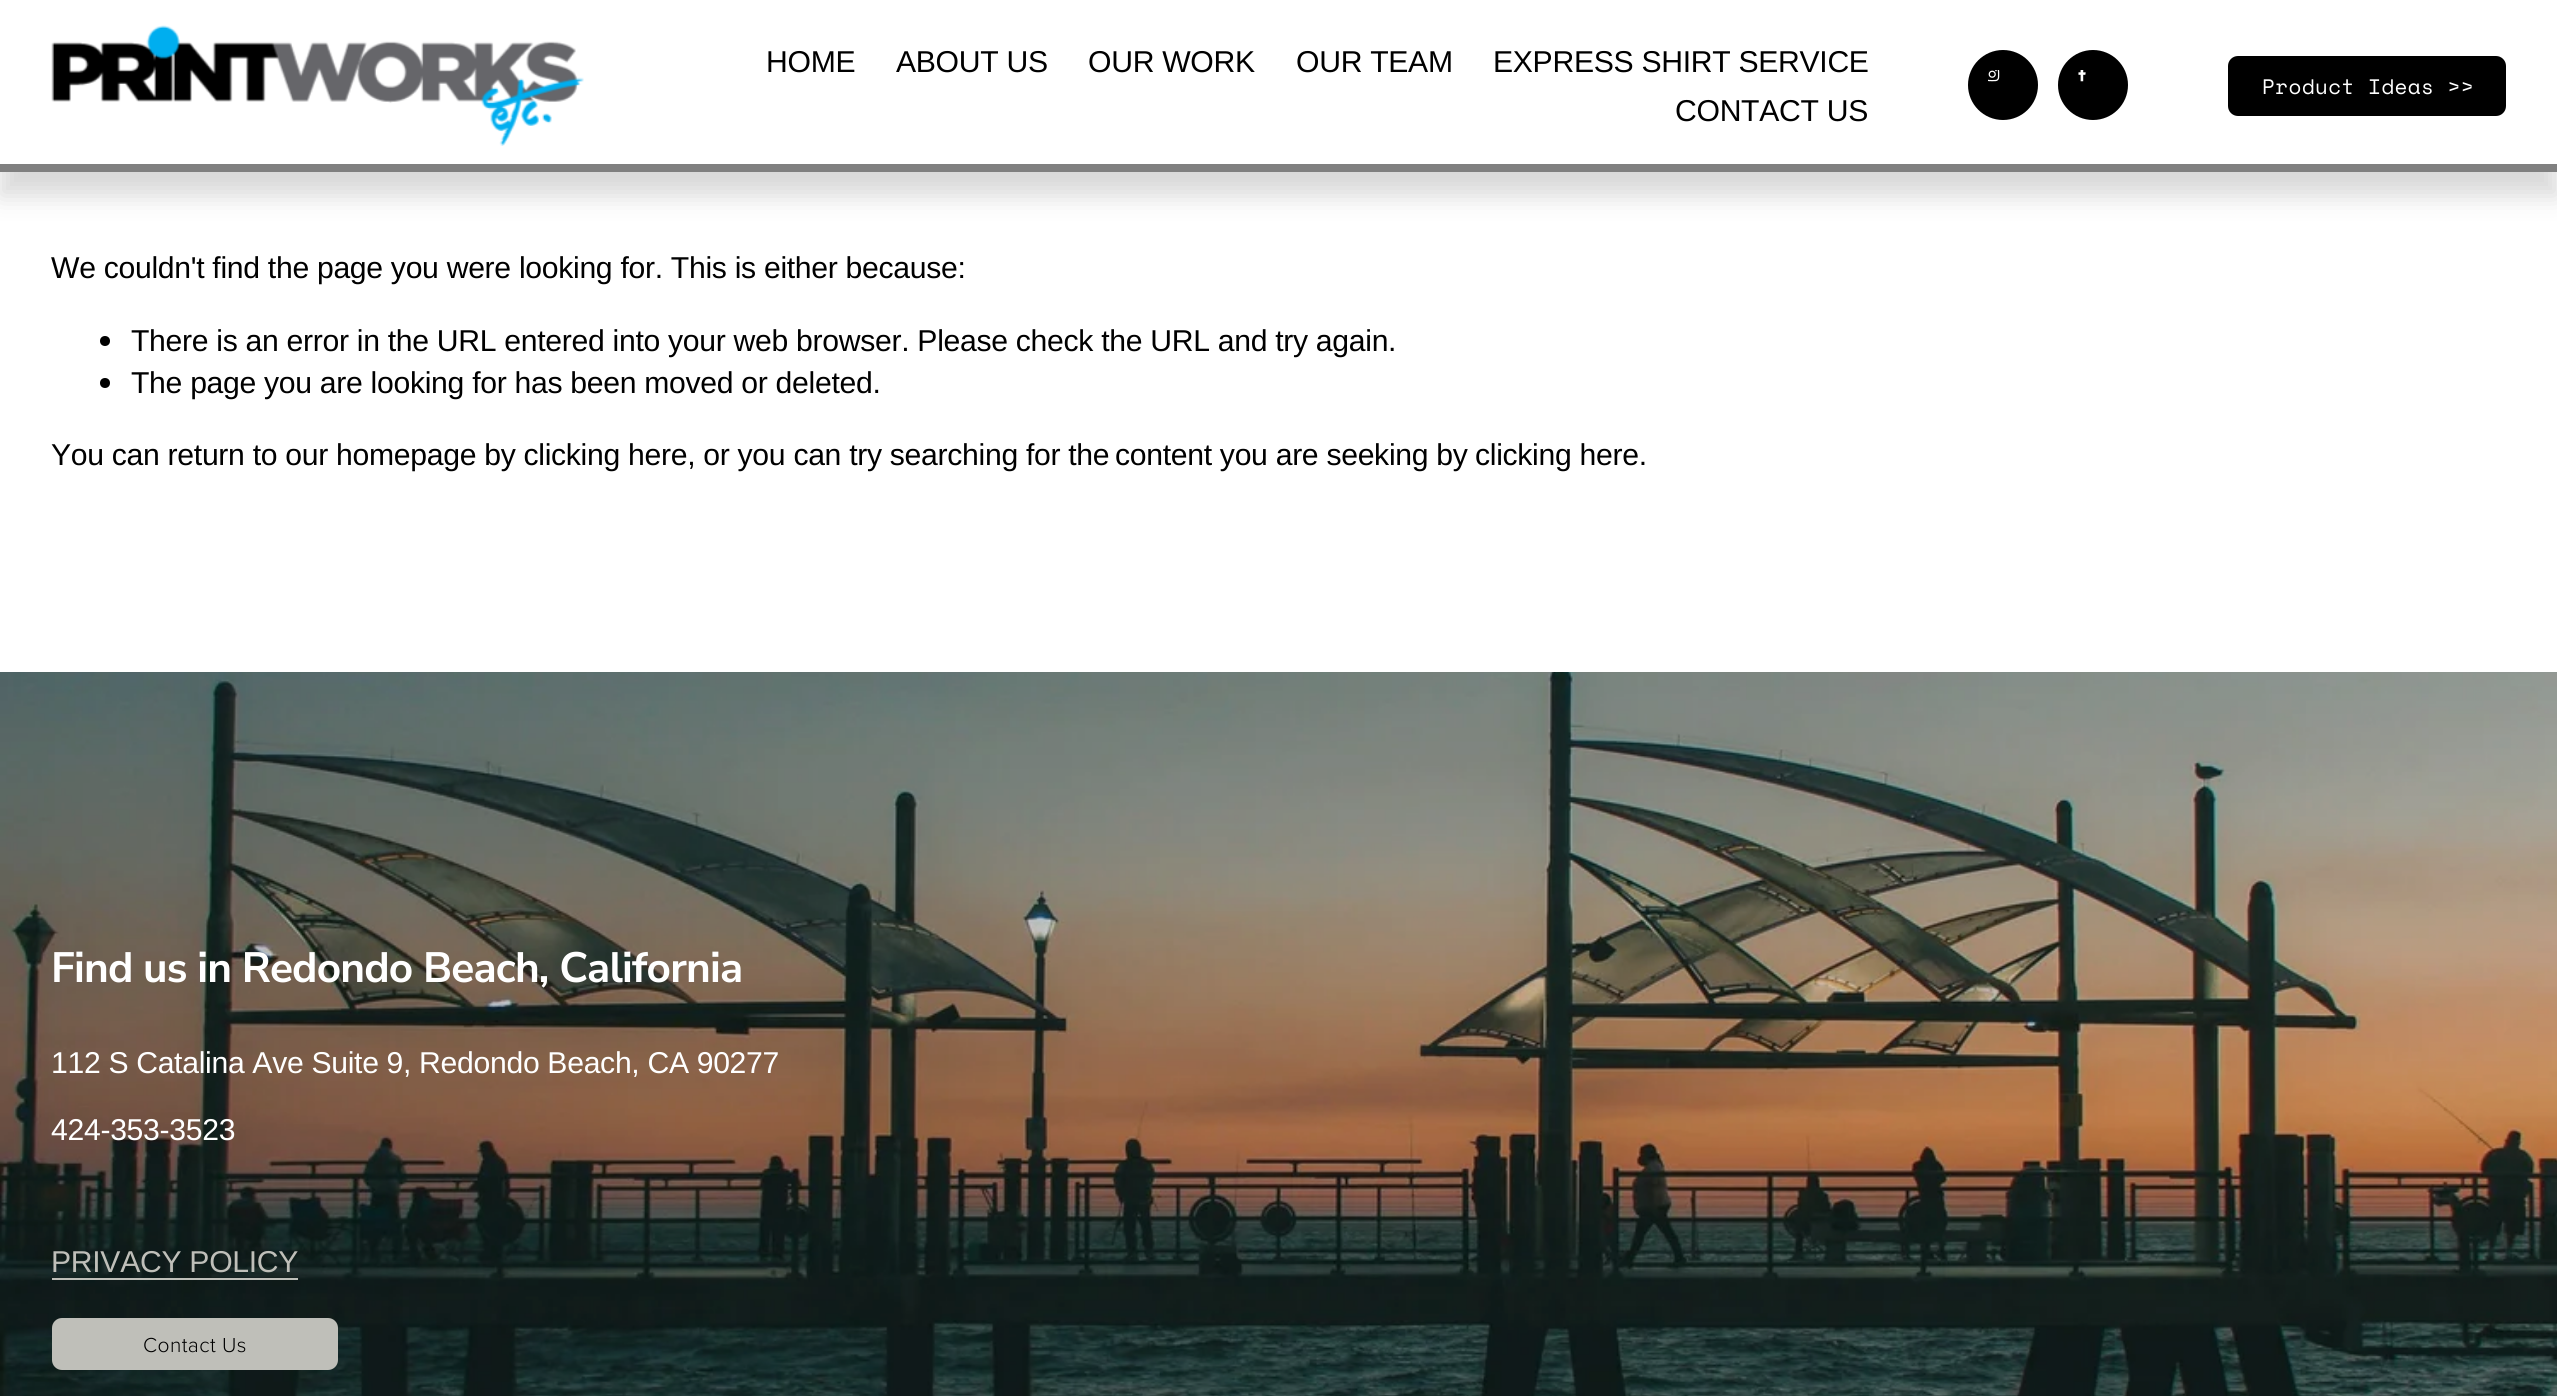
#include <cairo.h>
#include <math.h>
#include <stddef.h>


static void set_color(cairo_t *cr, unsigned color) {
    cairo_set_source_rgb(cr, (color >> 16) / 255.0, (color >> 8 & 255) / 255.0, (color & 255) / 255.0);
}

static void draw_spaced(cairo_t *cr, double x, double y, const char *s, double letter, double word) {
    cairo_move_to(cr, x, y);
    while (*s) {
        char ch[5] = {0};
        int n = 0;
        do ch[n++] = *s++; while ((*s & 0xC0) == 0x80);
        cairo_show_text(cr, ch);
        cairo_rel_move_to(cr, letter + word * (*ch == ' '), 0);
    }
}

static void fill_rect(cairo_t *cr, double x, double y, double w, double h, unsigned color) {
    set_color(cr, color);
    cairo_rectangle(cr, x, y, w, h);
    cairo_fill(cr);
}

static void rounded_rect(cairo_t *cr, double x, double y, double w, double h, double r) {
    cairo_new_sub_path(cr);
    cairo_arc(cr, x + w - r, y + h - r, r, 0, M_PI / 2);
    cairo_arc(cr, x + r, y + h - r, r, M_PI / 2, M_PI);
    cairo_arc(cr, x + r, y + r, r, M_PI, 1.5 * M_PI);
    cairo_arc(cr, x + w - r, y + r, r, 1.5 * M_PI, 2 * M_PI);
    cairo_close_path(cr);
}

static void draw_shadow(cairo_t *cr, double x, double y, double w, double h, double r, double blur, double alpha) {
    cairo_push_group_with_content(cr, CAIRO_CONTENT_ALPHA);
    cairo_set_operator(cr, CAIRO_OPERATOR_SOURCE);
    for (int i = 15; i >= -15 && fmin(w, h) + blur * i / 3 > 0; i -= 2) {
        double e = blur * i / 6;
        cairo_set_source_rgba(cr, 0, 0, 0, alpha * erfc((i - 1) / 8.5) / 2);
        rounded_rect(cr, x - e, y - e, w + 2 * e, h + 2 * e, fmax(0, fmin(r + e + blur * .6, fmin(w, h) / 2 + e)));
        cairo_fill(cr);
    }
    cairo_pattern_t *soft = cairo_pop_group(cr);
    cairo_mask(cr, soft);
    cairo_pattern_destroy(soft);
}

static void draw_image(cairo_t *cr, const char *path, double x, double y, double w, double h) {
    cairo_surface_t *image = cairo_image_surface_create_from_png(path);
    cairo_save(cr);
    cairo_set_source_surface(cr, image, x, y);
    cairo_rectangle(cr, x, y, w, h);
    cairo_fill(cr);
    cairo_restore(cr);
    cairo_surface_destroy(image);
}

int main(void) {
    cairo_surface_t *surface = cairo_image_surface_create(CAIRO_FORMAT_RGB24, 2557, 1396);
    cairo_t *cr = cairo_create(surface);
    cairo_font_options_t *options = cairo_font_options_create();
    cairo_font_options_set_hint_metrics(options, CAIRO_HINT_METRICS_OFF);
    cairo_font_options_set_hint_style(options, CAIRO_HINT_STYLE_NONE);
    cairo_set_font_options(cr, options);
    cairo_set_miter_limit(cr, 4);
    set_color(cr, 0xFFFFFF);
    cairo_paint(cr);
    cairo_save(cr);
    cairo_rectangle(cr, 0, 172, 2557, 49);
    cairo_clip(cr);
    set_color(cr, 0xD9D9D9);
    draw_shadow(cr, 0, 24, 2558, 172, 0, 12, 1);
    cairo_restore(cr);
    draw_image(cr, "assets/img1.png", 51, 25, 533, 121);
    cairo_select_font_face(cr, "Liberation Sans", CAIRO_FONT_SLANT_NORMAL, CAIRO_FONT_WEIGHT_NORMAL);
    cairo_set_font_size(cr, 30.15);
    set_color(cr, 0x000000);
    draw_spaced(cr, 766, 72, "HOME", -0.3, 0);
    draw_spaced(cr, 896, 72, "ABOUT US", -0.3, 0);
    draw_spaced(cr, 1088, 72, "OUR WORK", -0.3, 0);
    draw_spaced(cr, 1296, 72, "OUR TEAM", -0.3, 0);
    draw_spaced(cr, 1493, 72, "EXPRESS SHIRT SERVICE", -0.3, 0);
    draw_spaced(cr, 1675, 121, "CONTACT US", -0.3, 0);
    cairo_new_path(cr);
    cairo_arc(cr, 2003, 85, 35, 0, 2 * M_PI);
    cairo_fill(cr);
    draw_image(cr, "assets/img2.png", 1988, 70, 12, 12);
    cairo_arc(cr, 2093, 85, 35, 0, 2 * M_PI);
    cairo_fill(cr);
    draw_image(cr, "assets/img3.png", 2078, 70, 8, 12);
    rounded_rect(cr, 2228, 56, 278, 60, 10);
    cairo_fill(cr);
    cairo_select_font_face(cr, "Space Mono", CAIRO_FONT_SLANT_NORMAL, CAIRO_FONT_WEIGHT_NORMAL);
    cairo_set_font_size(cr, 21);
    set_color(cr, 0xFFFFFF);
    draw_spaced(cr, 2262, 94, "Product Ideas >>", 0.4, 0);
    fill_rect(cr, 0, 164, 2557, 8, 0x808080);
    cairo_select_font_face(cr, "Liberation Sans", CAIRO_FONT_SLANT_NORMAL, CAIRO_FONT_WEIGHT_NORMAL);
    cairo_set_font_size(cr, 30.15);
    set_color(cr, 0x000000);
    draw_spaced(cr, 51, 278, "We couldn't find the page you were looking for. This is either because:", -0.3, 0);
    cairo_new_path(cr);
    cairo_arc(cr, 105, 341, 5, 0, 2 * M_PI);
    cairo_fill(cr);
    draw_spaced(cr, 131, 351, "There is an error in the URL entered into your web browser. Please check the URL and try again.", -0.3, 0);
    cairo_new_path(cr);
    cairo_arc(cr, 105, 383, 5, 0, 2 * M_PI);
    cairo_fill(cr);
    draw_spaced(cr, 131, 393, "The page you are looking for has been moved or deleted.", -0.3, 0);
    draw_spaced(cr, 51, 465, "You can return to our homepage by clicking here, or you can try searching for the", -0.3, 0);
    draw_spaced(cr, 1115, 465, "content you are seeking by", -0.3, 0);
    draw_spaced(cr, 1475, 465, "clicking here.", -0.3, 0);
    draw_image(cr, "assets/img4.png", 0, 672, 2557, 724);
    cairo_select_font_face(cr, "Nunito Sans", CAIRO_FONT_SLANT_NORMAL, CAIRO_FONT_WEIGHT_BOLD);
    cairo_set_font_size(cr, 42.4);
    set_color(cr, 0xFFFFFF);
    draw_spaced(cr, 51, 982, "Find us in Redondo Beach, California", -0.85, 0);
    cairo_select_font_face(cr, "Liberation Sans", CAIRO_FONT_SLANT_NORMAL, CAIRO_FONT_WEIGHT_NORMAL);
    cairo_set_font_size(cr, 30.15);
    draw_spaced(cr, 51, 1073, "112 S Catalina Ave Suite 9, Redondo Beach, CA 90277", -0.3, -0.1);
    draw_spaced(cr, 51, 1140, "424-353-3523", -0.3, 0);
    set_color(cr, 0xBFBFB9);
    draw_spaced(cr, 51, 1272, "PRIVACY POLICY", -0.3, 0);
    fill_rect(cr, 52, 1278, 246, 2, 0xBFBFB9);
    rounded_rect(cr, 52, 1318, 286, 52, 10);
    cairo_fill(cr);
    cairo_select_font_face(cr, "Proxima Nova Light", CAIRO_FONT_SLANT_NORMAL, CAIRO_FONT_WEIGHT_NORMAL);
    cairo_set_font_size(cr, 21);
    set_color(cr, 0x000000);
    draw_spaced(cr, 143, 1352, "Contact Us", 0.4, 0);
    cairo_surface_write_to_png(surface, "output.png");
    cairo_font_options_destroy(options);
    cairo_destroy(cr);
    cairo_surface_destroy(surface);
    return 0;
}
